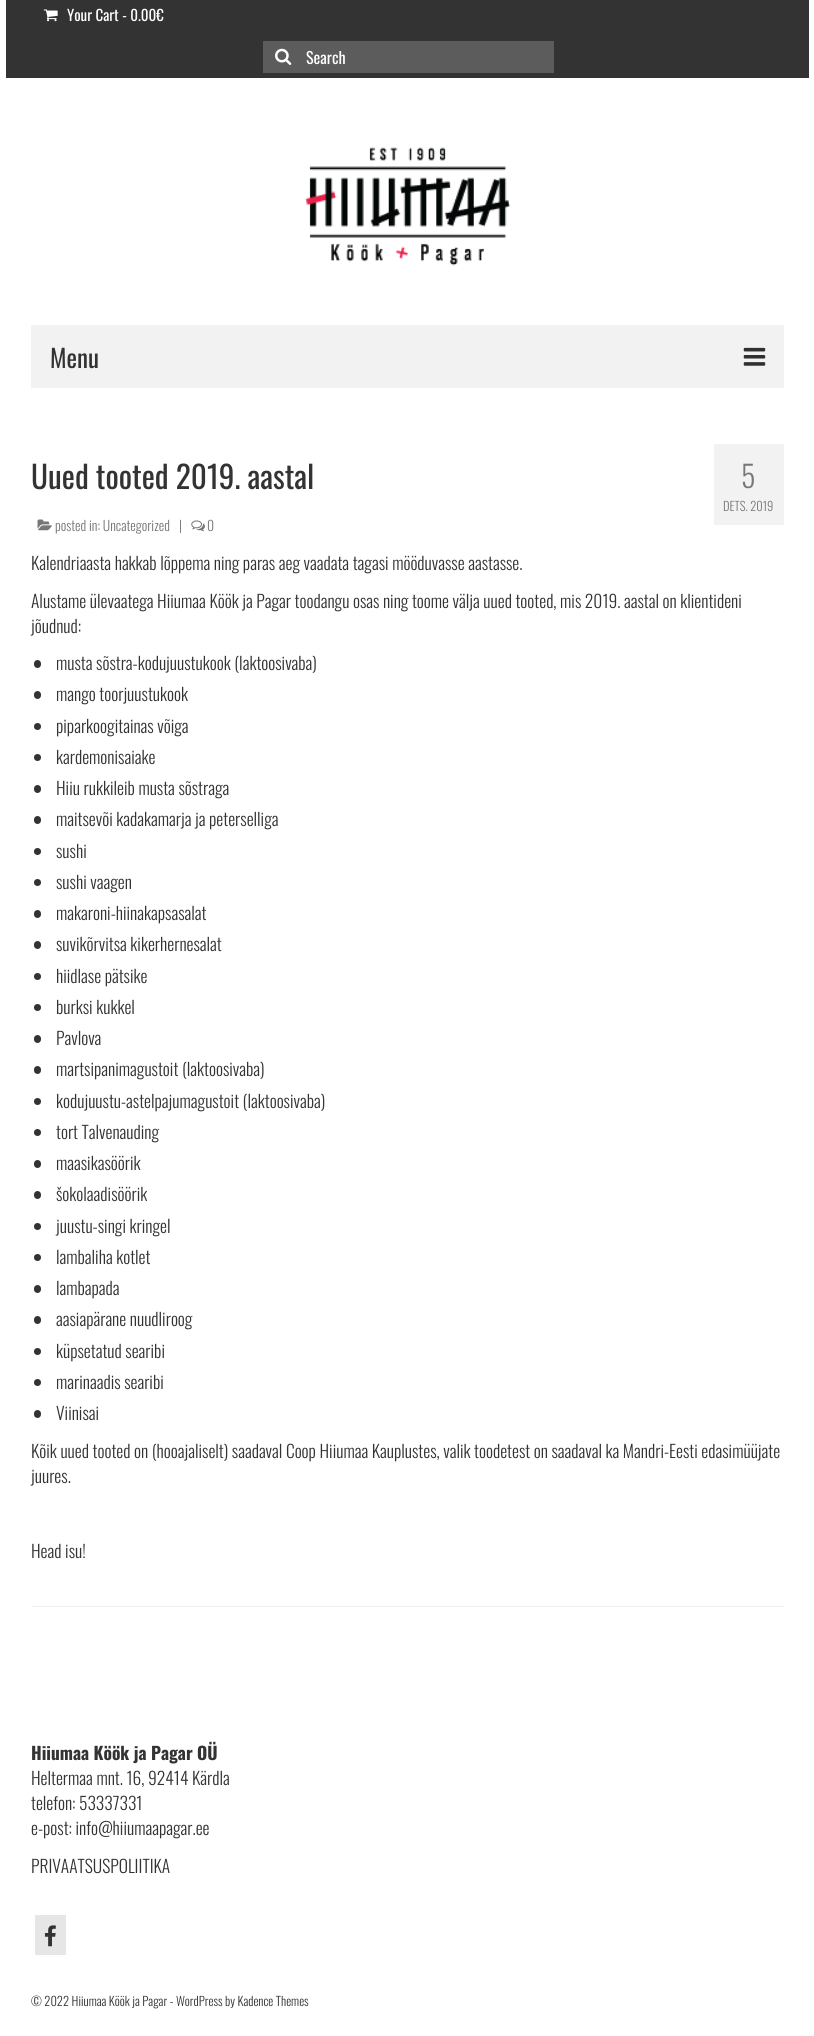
#include <cairo.h>
#include <math.h>
#include <stddef.h>


static void set_color(cairo_t *cr, unsigned color) {
    cairo_set_source_rgb(cr, (color >> 16) / 255.0, (color >> 8 & 255) / 255.0, (color & 255) / 255.0);
}

static void draw_text(cairo_t *cr, double x, double y, const char *s, const char *family, double size, int italic, int bold, unsigned color) {
    cairo_select_font_face(cr, family, italic ? CAIRO_FONT_SLANT_ITALIC : CAIRO_FONT_SLANT_NORMAL,
        bold ? CAIRO_FONT_WEIGHT_BOLD : CAIRO_FONT_WEIGHT_NORMAL);
    cairo_set_font_size(cr, size);
    set_color(cr, color);
    cairo_move_to(cr, x, y);
    cairo_show_text(cr, s);
}

static void fill_rect(cairo_t *cr, double x, double y, double w, double h, unsigned color) {
    set_color(cr, color);
    cairo_rectangle(cr, x, y, w, h);
    cairo_fill(cr);
}

static void rounded_rect(cairo_t *cr, double x, double y, double w, double h, double r) {
    cairo_new_sub_path(cr);
    cairo_arc(cr, x + w - r, y + h - r, r, 0, M_PI / 2);
    cairo_arc(cr, x + r, y + h - r, r, M_PI / 2, M_PI);
    cairo_arc(cr, x + r, y + r, r, M_PI, 1.5 * M_PI);
    cairo_arc(cr, x + w - r, y + r, r, 1.5 * M_PI, 2 * M_PI);
    cairo_close_path(cr);
}

static void draw_image(cairo_t *cr, const char *path, double x, double y, double w, double h) {
    cairo_surface_t *image = cairo_image_surface_create_from_png(path);
    cairo_save(cr);
    cairo_set_source_surface(cr, image, x, y);
    cairo_rectangle(cr, x, y, w, h);
    cairo_fill(cr);
    cairo_restore(cr);
    cairo_surface_destroy(image);
}

int main(void) {
    cairo_surface_t *surface = cairo_image_surface_create(CAIRO_FORMAT_RGB24, 814, 2036);
    cairo_t *cr = cairo_create(surface);
    cairo_font_options_t *options = cairo_font_options_create();
    cairo_font_options_set_hint_metrics(options, CAIRO_HINT_METRICS_OFF);
    cairo_font_options_set_hint_style(options, CAIRO_HINT_STYLE_NONE);
    cairo_set_font_options(cr, options);
    cairo_set_miter_limit(cr, 4);
    set_color(cr, 0xFFFFFF);
    cairo_paint(cr);
    fill_rect(cr, 6, 0, 803, 78, 0x333333);
    draw_image(cr, "assets/img1.png", 43, 9, 15, 13);
    draw_text(cr, 67, 21, "Your Cart - 0.00€", "Oswald", 15, 0, 0, 0xFFFFFF);
    fill_rect(cr, 263, 41, 291, 32, 0x5C5C5C);
    draw_image(cr, "assets/img2.png", 275, 48, 17, 17);
    draw_text(cr, 306, 64, "Search", "Oswald", 16, 0, 0, 0xFFFFFF);
    draw_image(cr, "assets/img3.png", 305, 147, 206, 119);
    fill_rect(cr, 31, 325, 753, 63, 0xF2F2F2);
    draw_text(cr, 50, 368, "Menu", "Oswald", 25, 0, 0, 0x333333);
    draw_image(cr, "assets/img4.png", 743, 347, 23, 19);
    draw_text(cr, 31, 489, "Uued tooted 2019. aastal", "Oswald", 31.25, 0, 0, 0x333333);
    draw_image(cr, "assets/img5.png", 37, 519, 15, 12);
    draw_text(cr, 55, 531, "posted in: Uncategorized", "Oswald Light", 13.75, 0, 0, 0x777777);
    draw_text(cr, 179, 531, "|", "Oswald Light", 13.75, 0, 0, 0x777777);
    draw_image(cr, "assets/img6.png", 191, 520, 14, 12);
    draw_text(cr, 207, 531, "0", "Oswald Light", 13.75, 0, 0, 0x777777);
    fill_rect(cr, 714, 444, 70, 81, 0xF2F2F2);
    draw_text(cr, 741, 488, "5", "Oswald Light", 30, 0, 0, 0x777777);
    draw_text(cr, 723, 511, "DETS. 2019", "Oswald Light", 12.5, 0, 0, 0x777777);
    draw_text(cr, 31, 570, "Kalendriaasta hakkab lõppema ning paras aeg vaadata tagasi mööduvasse aastasse.", "Oswald Light", 17.5, 0, 0, 0x333333);
    draw_text(cr, 31, 608, "Alustame ülevaatega Hiiumaa Köök ja Pagar toodangu osas ning toome välja uued tooted, mis 2019. aastal on klientideni", "Oswald Light", 17.5, 0, 0, 0x333333);
    draw_text(cr, 31, 633, "jõudnud:", "Oswald Light", 17.5, 0, 0, 0x333333);
    rounded_rect(cr, 34, 660, 7, 8, 3.5);
    cairo_fill(cr);
    draw_text(cr, 56, 670, "musta sõstra-kodujuustukook (laktoosivaba)", "Oswald Light", 17.5, 0, 0, 0x333333);
    rounded_rect(cr, 34, 691, 7, 8, 3.5);
    cairo_fill(cr);
    draw_text(cr, 56, 701, "mango toorjuustukook", "Oswald Light", 17.5, 0, 0, 0x333333);
    cairo_new_path(cr);
    cairo_arc(cr, 37.5, 726.5, 3.5, 0, 2 * M_PI);
    cairo_fill(cr);
    draw_text(cr, 56, 733, "piparkoogitainas võiga", "Oswald Light", 17.5, 0, 0, 0x333333);
    cairo_new_path(cr);
    cairo_arc(cr, 37.5, 757.5, 3.5, 0, 2 * M_PI);
    cairo_fill(cr);
    draw_text(cr, 56, 764, "kardemonisaiake", "Oswald Light", 17.5, 0, 0, 0x333333);
    rounded_rect(cr, 34, 785, 7, 8, 3.5);
    cairo_fill(cr);
    draw_text(cr, 56, 795, "Hiiu rukkileib musta sõstraga", "Oswald Light", 17.5, 0, 0, 0x333333);
    rounded_rect(cr, 34, 816, 7, 8, 3.5);
    cairo_fill(cr);
    draw_text(cr, 56, 826, "maitsevõi kadakamarja ja peterselliga", "Oswald Light", 17.5, 0, 0, 0x333333);
    cairo_new_path(cr);
    cairo_arc(cr, 37.5, 851.5, 3.5, 0, 2 * M_PI);
    cairo_fill(cr);
    draw_text(cr, 56, 858, "sushi", "Oswald Light", 17.5, 0, 0, 0x333333);
    cairo_new_path(cr);
    cairo_arc(cr, 37.5, 882.5, 3.5, 0, 2 * M_PI);
    cairo_fill(cr);
    draw_text(cr, 56, 889, "sushi vaagen", "Oswald Light", 17.5, 0, 0, 0x333333);
    rounded_rect(cr, 34, 910, 7, 8, 3.5);
    cairo_fill(cr);
    draw_text(cr, 56, 920, "makaroni-hiinakapsasalat", "Oswald Light", 17.5, 0, 0, 0x333333);
    rounded_rect(cr, 34, 941, 7, 8, 3.5);
    cairo_fill(cr);
    draw_text(cr, 56, 951, "suvikõrvitsa kikerhernesalat", "Oswald Light", 17.5, 0, 0, 0x333333);
    cairo_new_path(cr);
    cairo_arc(cr, 37.5, 976.5, 3.5, 0, 2 * M_PI);
    cairo_fill(cr);
    draw_text(cr, 56, 983, "hiidlase pätsike", "Oswald Light", 17.5, 0, 0, 0x333333);
    cairo_new_path(cr);
    cairo_arc(cr, 37.5, 1007.5, 3.5, 0, 2 * M_PI);
    cairo_fill(cr);
    draw_text(cr, 56, 1014, "burksi kukkel", "Oswald Light", 17.5, 0, 0, 0x333333);
    rounded_rect(cr, 34, 1035, 7, 8, 3.5);
    cairo_fill(cr);
    draw_text(cr, 56, 1045, "Pavlova", "Oswald Light", 17.5, 0, 0, 0x333333);
    rounded_rect(cr, 34, 1066, 7, 8, 3.5);
    cairo_fill(cr);
    draw_text(cr, 56, 1076, "martsipanimagustoit (laktoosivaba)", "Oswald Light", 17.5, 0, 0, 0x333333);
    cairo_new_path(cr);
    cairo_arc(cr, 37.5, 1101.5, 3.5, 0, 2 * M_PI);
    cairo_fill(cr);
    draw_text(cr, 56, 1108, "kodujuustu-astelpajumagustoit (laktoosivaba)", "Oswald Light", 17.5, 0, 0, 0x333333);
    cairo_new_path(cr);
    cairo_arc(cr, 37.5, 1132.5, 3.5, 0, 2 * M_PI);
    cairo_fill(cr);
    draw_text(cr, 56, 1139, "tort Talvenauding", "Oswald Light", 17.5, 0, 0, 0x333333);
    rounded_rect(cr, 34, 1160, 7, 8, 3.5);
    cairo_fill(cr);
    draw_text(cr, 56, 1170, "maasikasöörik", "Oswald Light", 17.5, 0, 0, 0x333333);
    rounded_rect(cr, 34, 1191, 7, 8, 3.5);
    cairo_fill(cr);
    draw_text(cr, 56, 1201, "šokolaadisöörik", "Oswald Light", 17.5, 0, 0, 0x333333);
    cairo_new_path(cr);
    cairo_arc(cr, 37.5, 1226.5, 3.5, 0, 2 * M_PI);
    cairo_fill(cr);
    draw_text(cr, 56, 1233, "juustu-singi kringel", "Oswald Light", 17.5, 0, 0, 0x333333);
    cairo_new_path(cr);
    cairo_arc(cr, 37.5, 1257.5, 3.5, 0, 2 * M_PI);
    cairo_fill(cr);
    draw_text(cr, 56, 1264, "lambaliha kotlet", "Oswald Light", 17.5, 0, 0, 0x333333);
    rounded_rect(cr, 34, 1285, 7, 8, 3.5);
    cairo_fill(cr);
    draw_text(cr, 56, 1295, "lambapada", "Oswald Light", 17.5, 0, 0, 0x333333);
    rounded_rect(cr, 34, 1316, 7, 8, 3.5);
    cairo_fill(cr);
    draw_text(cr, 56, 1326, "aasiapärane nuudliroog", "Oswald Light", 17.5, 0, 0, 0x333333);
    cairo_new_path(cr);
    cairo_arc(cr, 37.5, 1351.5, 3.5, 0, 2 * M_PI);
    cairo_fill(cr);
    draw_text(cr, 56, 1358, "küpsetatud searibi", "Oswald Light", 17.5, 0, 0, 0x333333);
    cairo_new_path(cr);
    cairo_arc(cr, 37.5, 1382.5, 3.5, 0, 2 * M_PI);
    cairo_fill(cr);
    draw_text(cr, 56, 1389, "marinaadis searibi", "Oswald Light", 17.5, 0, 0, 0x333333);
    rounded_rect(cr, 34, 1410, 7, 8, 3.5);
    cairo_fill(cr);
    draw_text(cr, 56, 1420, "Viinisai", "Oswald Light", 17.5, 0, 0, 0x333333);
    draw_text(cr, 31, 1458, "Kõik uued tooted on (hooajaliselt) saadaval Coop Hiiumaa Kauplustes, valik toodetest on saadaval ka Mandri-Eesti edasimüüjate", "Oswald Light", 17.5, 0, 0, 0x333333);
    draw_text(cr, 31, 1483, "juures.", "Oswald Light", 17.5, 0, 0, 0x333333);
    draw_text(cr, 31, 1558, "Head isu!", "Oswald Light", 17.5, 0, 0, 0x333333);
    fill_rect(cr, 31, 1606, 753, 1, 0xF2F2F2);
    draw_text(cr, 31, 1760, "Hiiumaa Köök ja Pagar OÜ", "Oswald", 17.5, 0, 1, 0x333333);
    draw_text(cr, 31, 1785, "Heltermaa mnt. 16, 92414 Kärdla", "Oswald Light", 17.5, 0, 0, 0x333333);
    draw_text(cr, 31, 1810, "telefon: 53337331", "Oswald Light", 17.5, 0, 0, 0x333333);
    draw_text(cr, 31, 1835, "e-post: info@hiiumaapagar.ee", "Oswald Light", 17.5, 0, 0, 0x333333);
    draw_text(cr, 31, 1873, "PRIVAATSUSPOLIITIKA", "Oswald Light", 17.5, 0, 0, 0x333333);
    fill_rect(cr, 35, 1915, 31, 40, 0xE6E6E6);
    draw_image(cr, "assets/img7.png", 44, 1925, 12, 22);
    draw_text(cr, 31, 2006, "© 2022 Hiiumaa Köök ja Pagar - WordPress by Kadence Themes", "Oswald Light", 12.5, 0, 0, 0x333333);
    cairo_surface_write_to_png(surface, "output.png");
    cairo_font_options_destroy(options);
    cairo_destroy(cr);
    cairo_surface_destroy(surface);
    return 0;
}
